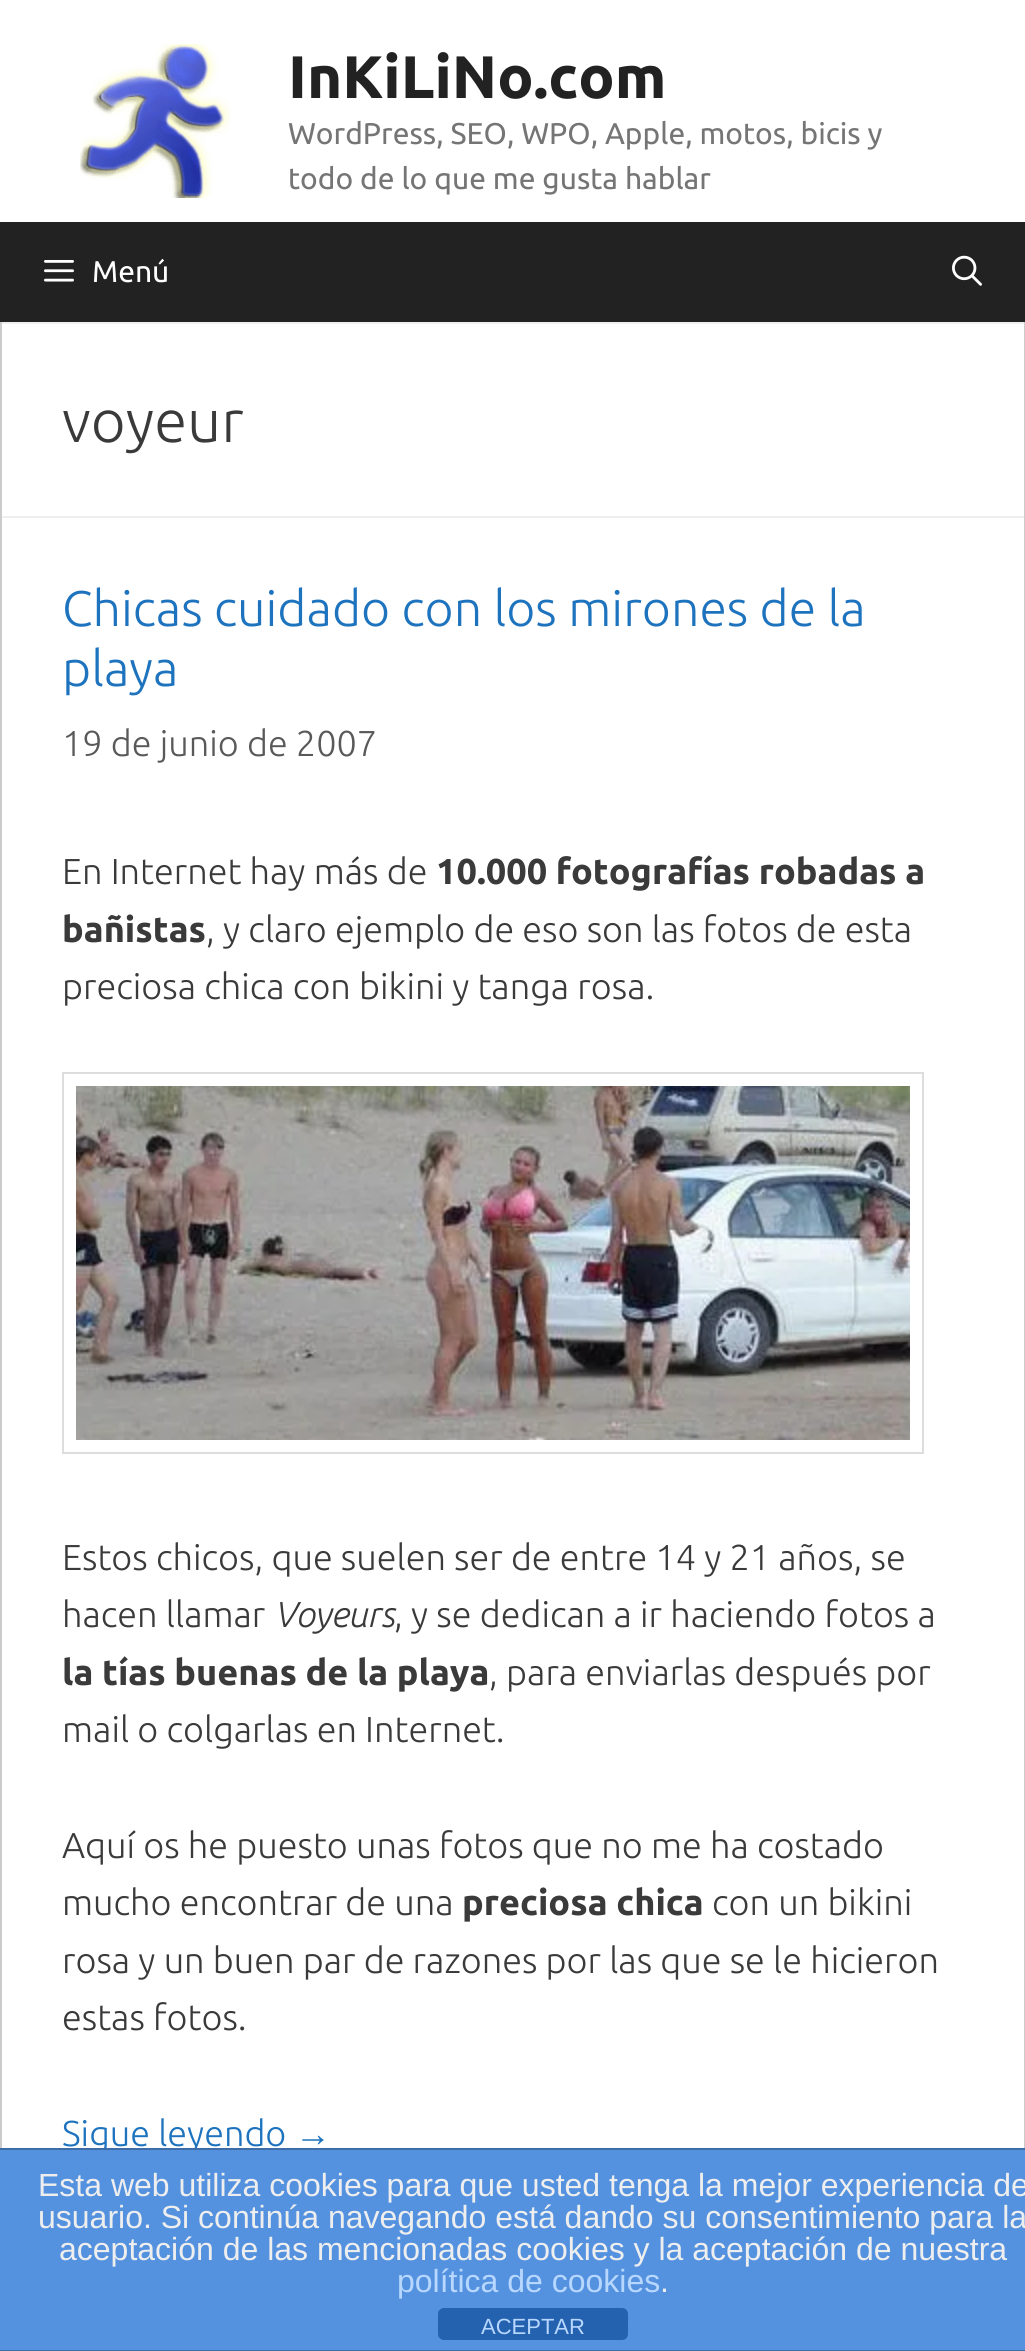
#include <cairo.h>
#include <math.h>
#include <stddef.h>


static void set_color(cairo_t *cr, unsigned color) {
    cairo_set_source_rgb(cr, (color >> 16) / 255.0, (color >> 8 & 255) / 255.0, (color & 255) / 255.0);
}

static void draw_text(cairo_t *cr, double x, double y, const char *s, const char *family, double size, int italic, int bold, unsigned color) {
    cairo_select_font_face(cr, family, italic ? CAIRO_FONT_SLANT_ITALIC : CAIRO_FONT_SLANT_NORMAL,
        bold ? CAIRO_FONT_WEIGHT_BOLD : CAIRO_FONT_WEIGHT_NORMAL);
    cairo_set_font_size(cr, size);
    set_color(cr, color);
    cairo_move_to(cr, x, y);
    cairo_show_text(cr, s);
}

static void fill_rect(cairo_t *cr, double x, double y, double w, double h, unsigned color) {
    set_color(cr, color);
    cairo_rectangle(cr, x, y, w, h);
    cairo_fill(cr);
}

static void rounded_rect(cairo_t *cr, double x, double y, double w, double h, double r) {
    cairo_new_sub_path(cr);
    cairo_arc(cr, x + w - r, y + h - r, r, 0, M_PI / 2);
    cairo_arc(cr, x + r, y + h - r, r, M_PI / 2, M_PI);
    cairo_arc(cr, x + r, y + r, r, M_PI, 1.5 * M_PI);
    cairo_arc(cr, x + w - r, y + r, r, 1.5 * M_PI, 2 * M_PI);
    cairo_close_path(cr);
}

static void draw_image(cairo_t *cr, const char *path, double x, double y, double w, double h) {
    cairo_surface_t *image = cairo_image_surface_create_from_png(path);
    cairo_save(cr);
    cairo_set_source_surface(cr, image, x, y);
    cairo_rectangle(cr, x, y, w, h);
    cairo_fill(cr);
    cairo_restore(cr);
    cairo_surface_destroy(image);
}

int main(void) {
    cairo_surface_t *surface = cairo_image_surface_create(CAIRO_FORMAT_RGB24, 1025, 2351);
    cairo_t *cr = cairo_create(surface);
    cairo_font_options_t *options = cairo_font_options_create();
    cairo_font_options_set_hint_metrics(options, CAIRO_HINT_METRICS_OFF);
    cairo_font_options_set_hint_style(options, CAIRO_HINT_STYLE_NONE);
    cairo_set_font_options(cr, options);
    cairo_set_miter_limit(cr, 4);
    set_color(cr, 0xEFEFEF);
    cairo_paint(cr);
    fill_rect(cr, 0, 0, 1025, 222, 0xFFFFFF);
    draw_image(cr, "assets/img1.png", 80, 44, 151, 154);
    draw_text(cr, 288, 98, "InKiLiNo.com", "Ubuntu", 60, 0, 1, 0x222222);
    draw_text(cr, 288, 144, "WordPress, SEO, WPO, Apple, motos, bicis y", "Ubuntu", 30, 0, 0, 0x757575);
    draw_text(cr, 288, 189, "todo de lo que me gusta hablar", "Ubuntu", 30, 0, 0, 0x757575);
    fill_rect(cr, 0, 222, 1025, 100, 0x222222);
    draw_image(cr, "assets/img2.png", 44, 260, 30, 22);
    draw_text(cr, 92, 282, "Menú", "Ubuntu", 30, 0, 0, 0xFFFFFF);
    draw_image(cr, "assets/img3.png", 952, 255, 30, 31);
    fill_rect(cr, 1024, 322, 1, 1826, 0xCCCCCC);
    fill_rect(cr, 0, 322, 2, 1826, 0xCCCCCC);
    fill_rect(cr, 2, 324, 1022, 192, 0xFFFFFF);
    draw_text(cr, 62, 442, "voyeur", "Ubuntu Light", 60, 0, 0, 0x3A3A3A);
    fill_rect(cr, 2, 518, 1022, 1630, 0xFFFFFF);
    draw_text(cr, 62, 626, "Chicas cuidado con los mirones de la", "Ubuntu Light", 50, 0, 0, 0x1E73BE);
    draw_text(cr, 62, 686, "playa", "Ubuntu Light", 50, 0, 0, 0x1E73BE);
    draw_text(cr, 62, 756, "19 de junio de 2007", "Ubuntu Light", 36, 0, 0, 0x595959);
    draw_text(cr, 62, 884, "En Internet hay más de", "Ubuntu Light", 36, 0, 0, 0x3A3A3A);
    draw_text(cr, 436, 884, "10.000 fotografías robadas a", "Ubuntu", 36, 0, 1, 0x3A3A3A);
    draw_text(cr, 62, 942, "bañistas", "Ubuntu", 36, 0, 1, 0x3A3A3A);
    draw_text(cr, 206, 942, ", y claro ejemplo de eso son las fotos de esta", "Ubuntu Light", 36, 0, 0, 0x3A3A3A);
    draw_text(cr, 62, 999, "preciosa chica con bikini y tanga rosa.", "Ubuntu Light", 36, 0, 0, 0x3A3A3A);
    cairo_rectangle(cr, 63, 1073, 860, 380);
    set_color(cr, 0xDDDDDD);
    cairo_stroke(cr);
    draw_image(cr, "assets/img4.png", 76, 1086, 834, 354);
    draw_text(cr, 62, 1570, "Estos chicos, que suelen ser de entre 14 y 21 años, se", "Ubuntu Light", 36, 0, 0, 0x3A3A3A);
    draw_text(cr, 62, 1627, "hacen llamar", "Ubuntu Light", 36, 0, 0, 0x3A3A3A);
    draw_text(cr, 274, 1627, "Voyeurs", "Ubuntu Light", 36, 1, 0, 0x3A3A3A);
    draw_text(cr, 394, 1627, ", y se dedican a ir haciendo fotos a", "Ubuntu Light", 36, 0, 0, 0x3A3A3A);
    draw_text(cr, 62, 1685, "la tías buenas de la playa", "Ubuntu", 36, 0, 1, 0x3A3A3A);
    draw_text(cr, 489, 1685, ", para enviarlas después por", "Ubuntu Light", 36, 0, 0, 0x3A3A3A);
    draw_text(cr, 62, 1742, "mail o colgarlas en Internet.", "Ubuntu Light", 36, 0, 0, 0x3A3A3A);
    draw_text(cr, 62, 1858, "Aquí os he puesto unas fotos que no me ha costado", "Ubuntu Light", 36, 0, 0, 0x3A3A3A);
    draw_text(cr, 62, 1915, "mucho encontrar de una", "Ubuntu Light", 36, 0, 0, 0x3A3A3A);
    draw_text(cr, 462, 1915, "preciosa chica", "Ubuntu", 36, 0, 1, 0x3A3A3A);
    draw_text(cr, 712, 1915, "con un bikini", "Ubuntu Light", 36, 0, 0, 0x3A3A3A);
    draw_text(cr, 62, 1973, "rosa y un buen par de razones por las que se le hicieron", "Ubuntu Light", 36, 0, 0, 0x3A3A3A);
    draw_text(cr, 62, 2030, "estas fotos.", "Ubuntu Light", 36, 0, 0, 0x3A3A3A);
    draw_text(cr, 62, 2146, "Sigue leyendo", "Ubuntu Light", 36, 0, 0, 0x1E73BE);
    draw_text(cr, 295, 2146, "→", "Liberation Sans", 36, 0, 0, 0x1E73BE);
    fill_rect(cr, 0, 2150, 1025, 200, 0x5492E0);
    fill_rect(cr, 0, 2148, 1025, 2, 0x3F6DA7);
    fill_rect(cr, 0, 2350, 1025, 1, 0x3F6DA7);
    draw_text(cr, 38, 2196, "Esta web utiliza cookies para que usted tenga la mejor experiencia de", "Liberation Sans", 32, 0, 0, 0xEEEEEE);
    draw_text(cr, 38, 2228, "usuario. Si continúa navegando está dando su consentimiento para la", "Liberation Sans", 32, 0, 0, 0xEEEEEE);
    draw_text(cr, 59, 2260, "aceptación de las mencionadas cookies y la aceptación de nuestra", "Liberation Sans", 32, 0, 0, 0xEEEEEE);
    draw_text(cr, 397, 2292, "política de cookies", "Liberation Sans", 32, 0, 0, 0xB7D7FF);
    draw_text(cr, 660, 2292, ".", "Liberation Sans", 32, 0, 0, 0xEEEEEE);
    set_color(cr, 0x2462B0);
    rounded_rect(cr, 438, 2308, 190, 32, 6);
    cairo_fill(cr);
    draw_text(cr, 481, 2334, "ACEPTAR", "Liberation Sans", 22, 0, 0, 0xB7D7FF);
    cairo_surface_write_to_png(surface, "output.png");
    cairo_font_options_destroy(options);
    cairo_destroy(cr);
    cairo_surface_destroy(surface);
    return 0;
}
